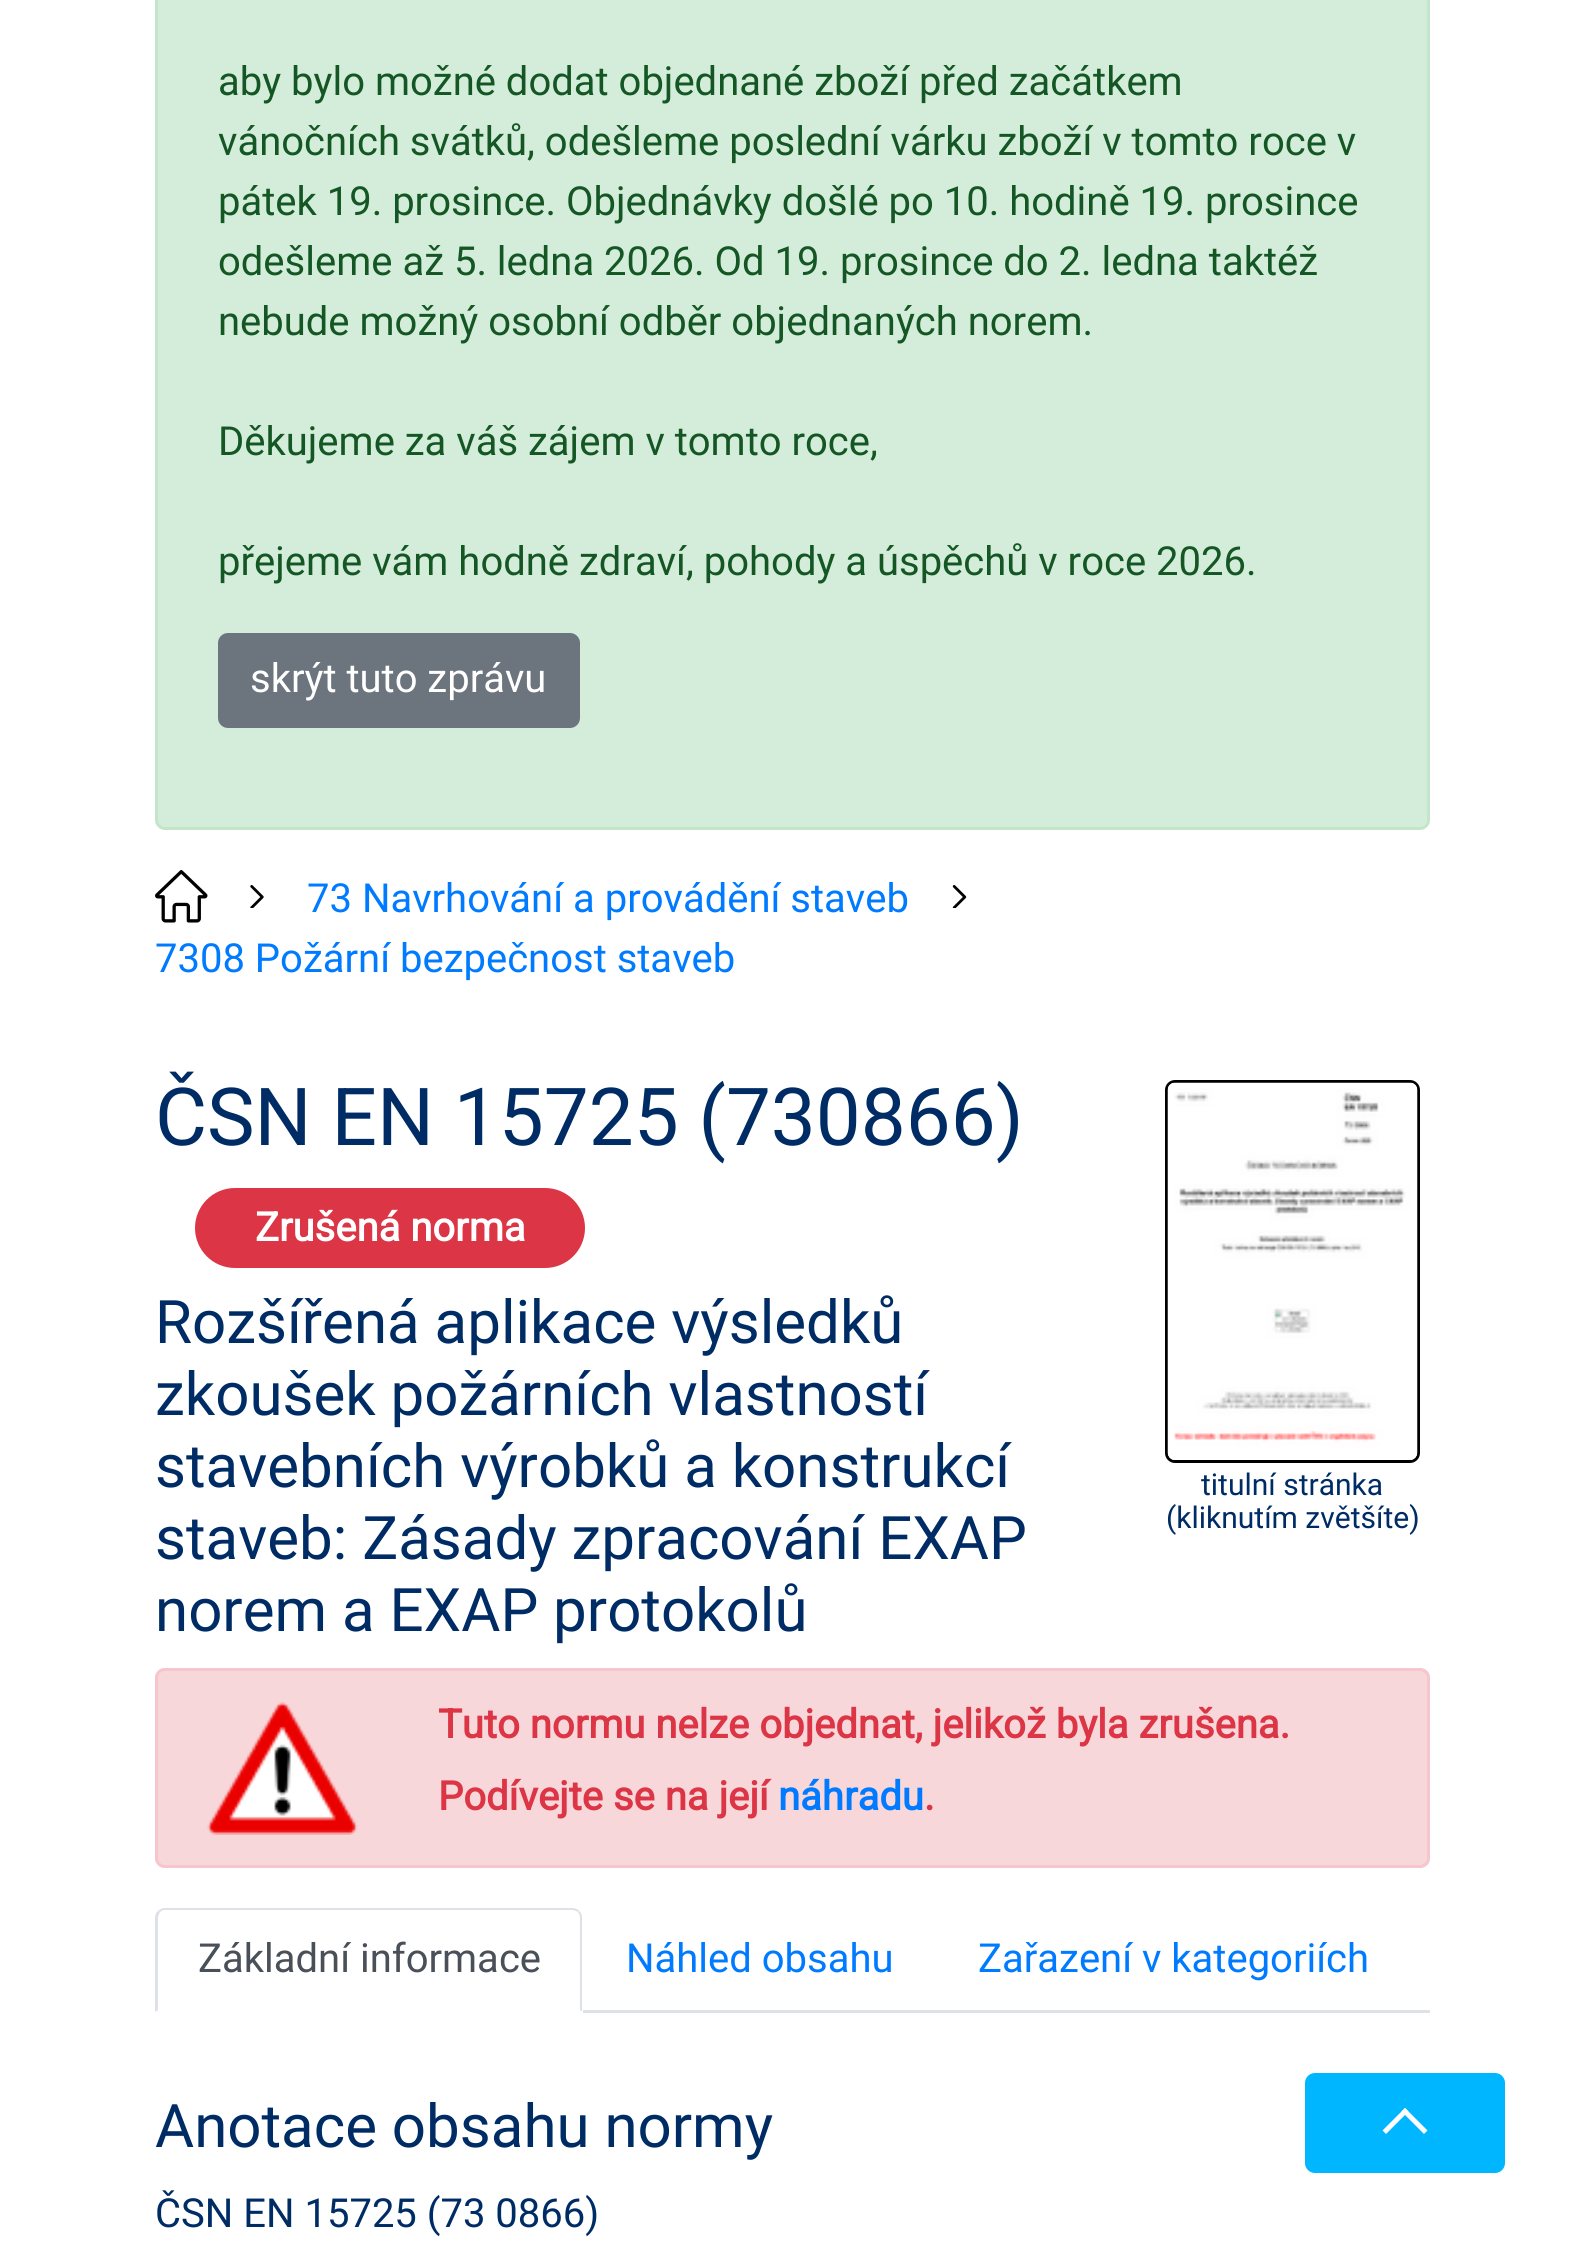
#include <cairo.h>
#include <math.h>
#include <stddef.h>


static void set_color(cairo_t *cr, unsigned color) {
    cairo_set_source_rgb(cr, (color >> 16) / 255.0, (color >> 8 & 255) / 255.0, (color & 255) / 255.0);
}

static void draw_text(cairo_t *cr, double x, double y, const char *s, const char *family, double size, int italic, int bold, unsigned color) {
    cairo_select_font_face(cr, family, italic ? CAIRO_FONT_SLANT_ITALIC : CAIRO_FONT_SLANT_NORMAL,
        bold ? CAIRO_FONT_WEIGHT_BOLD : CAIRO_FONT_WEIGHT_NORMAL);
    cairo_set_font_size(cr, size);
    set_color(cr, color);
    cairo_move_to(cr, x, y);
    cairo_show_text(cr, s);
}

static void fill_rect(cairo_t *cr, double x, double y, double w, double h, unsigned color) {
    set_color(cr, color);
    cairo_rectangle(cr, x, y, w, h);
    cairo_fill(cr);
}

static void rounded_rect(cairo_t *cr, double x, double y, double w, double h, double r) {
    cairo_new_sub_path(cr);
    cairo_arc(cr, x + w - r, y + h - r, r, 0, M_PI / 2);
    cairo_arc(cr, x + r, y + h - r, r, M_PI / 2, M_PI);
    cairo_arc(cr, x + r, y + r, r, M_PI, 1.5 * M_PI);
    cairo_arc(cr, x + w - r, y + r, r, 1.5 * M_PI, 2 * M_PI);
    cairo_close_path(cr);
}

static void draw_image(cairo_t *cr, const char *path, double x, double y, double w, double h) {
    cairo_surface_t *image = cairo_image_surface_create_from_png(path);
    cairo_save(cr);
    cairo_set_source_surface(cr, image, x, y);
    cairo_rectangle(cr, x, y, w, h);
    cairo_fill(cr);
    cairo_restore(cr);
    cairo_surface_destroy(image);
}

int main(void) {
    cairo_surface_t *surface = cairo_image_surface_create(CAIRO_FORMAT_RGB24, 1583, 2252);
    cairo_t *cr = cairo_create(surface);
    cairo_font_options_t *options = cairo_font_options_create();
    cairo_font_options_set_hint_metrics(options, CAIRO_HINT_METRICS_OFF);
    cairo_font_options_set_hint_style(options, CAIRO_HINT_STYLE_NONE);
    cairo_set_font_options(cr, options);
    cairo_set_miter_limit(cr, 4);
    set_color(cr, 0xFFFFFF);
    cairo_paint(cr);
    set_color(cr, 0xD4EDDA);
    rounded_rect(cr, 156.5, -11.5, 1272, 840, 8.5);
    cairo_fill_preserve(cr);
    set_color(cr, 0xC3E6CB);
    cairo_set_line_width(cr, 3);
    cairo_stroke(cr);
    draw_text(cr, 218, 95, "aby bylo možné dodat objednané zboží před začátkem", "Roboto", 40, 0, 0, 0x155724);
    draw_text(cr, 218, 155, "vánočních svátků, odešleme poslední várku zboží v tomto roce v", "Roboto", 40, 0, 0, 0x155724);
    draw_text(cr, 218, 215, "pátek 19. prosince. Objednávky došlé po 10. hodině 19. prosince", "Roboto", 40, 0, 0, 0x155724);
    draw_text(cr, 218, 275, "odešleme až 5. ledna 2026. Od 19. prosince do 2. ledna taktéž", "Roboto", 40, 0, 0, 0x155724);
    draw_text(cr, 218, 335, "nebude možný osobní odběr objednaných norem.", "Roboto", 40, 0, 0, 0x155724);
    draw_text(cr, 218, 455, "Děkujeme za váš zájem v tomto roce,", "Roboto", 40, 0, 0, 0x155724);
    draw_text(cr, 218, 575, "přejeme vám hodně zdraví, pohody a úspěchů v roce 2026.", "Roboto", 40, 0, 0, 0x155724);
    set_color(cr, 0x6C757D);
    rounded_rect(cr, 219.5, 634.5, 359, 92, 8.5);
    cairo_fill_preserve(cr);
    cairo_stroke(cr);
    draw_text(cr, 250, 692, "skrýt tuto zprávu", "Roboto", 40, 0, 0, 0xFFFFFF);
    draw_image(cr, "assets/img1.png", 155, 870, 53, 53);
    draw_image(cr, "assets/img2.png", 250, 885, 14, 23);
    draw_text(cr, 307, 912, "73 Navrhování a provádění staveb", "Roboto", 40, 0, 0, 0x007BFF);
    draw_image(cr, "assets/img3.png", 952, 885, 15, 23);
    draw_text(cr, 155, 972, "7308 Požární bezpečnost staveb", "Roboto", 40, 0, 0, 0x007BFF);
    draw_text(cr, 155, 1145, "ČSN EN 15725 (730866)", "Roboto", 80, 0, 0, 0x002C66);
    set_color(cr, 0xDC3545);
    rounded_rect(cr, 195, 1188, 390, 80, 40);
    cairo_fill(cr);
    draw_text(cr, 255, 1241, "Zrušená norma", "Roboto", 40, 0, 1, 0xFFFFFF);
    draw_text(cr, 155, 1343, "Rozšířená aplikace výsledků", "Roboto", 60, 0, 0, 0x002C66);
    draw_text(cr, 155, 1415, "zkoušek požárních vlastností", "Roboto", 60, 0, 0, 0x002C66);
    draw_text(cr, 155, 1487, "stavebních výrobků a konstrukcí", "Roboto", 60, 0, 0, 0x002C66);
    draw_text(cr, 155, 1559, "staveb: Zásady zpracování EXAP", "Roboto", 60, 0, 0, 0x002C66);
    draw_text(cr, 155, 1631, "norem a EXAP protokolů", "Roboto", 60, 0, 0, 0x002C66);
    rounded_rect(cr, 1166.5, 1081.5, 252, 380, 8.5);
    set_color(cr, 0x000000);
    cairo_stroke(cr);
    draw_image(cr, "assets/img4.png", 1167, 1082, 251, 378);
    draw_text(cr, 1201, 1495, "titulní stránka", "Roboto", 30, 0, 0, 0x002C66);
    draw_text(cr, 1166, 1528, "(kliknutím zvětšíte)", "Roboto", 30, 0, 0, 0x002C66);
    set_color(cr, 0xF8D7DA);
    rounded_rect(cr, 155, 1668, 1275, 200, 10);
    cairo_fill(cr);
    draw_image(cr, "assets/img5.png", 207, 1702, 151, 133);
    rounded_rect(cr, 156.5, 1669.5, 1272, 197, 8.5);
    set_color(cr, 0xF5C6CB);
    cairo_stroke(cr);
    draw_text(cr, 438, 1738, "Tuto normu nelze objednat, jelikož byla zrušena.", "Roboto", 40, 0, 1, 0xDC3545);
    draw_text(cr, 438, 1810, "Podívejte se na její", "Roboto", 40, 0, 1, 0xDC3545);
    draw_text(cr, 778, 1810, "náhradu", "Roboto", 40, 0, 1, 0x007BFF);
    draw_text(cr, 924, 1810, ".", "Roboto", 40, 0, 1, 0xDC3545);
    fill_rect(cr, 583, 2010, 847, 3, 0xDEE2E6);
    cairo_new_path(cr);
    cairo_move_to(cr, 165, 1908);
    cairo_curve_to(cr, 162, 1908, 160, 1909, 158, 1911);
    cairo_line_to(cr, 160, 1912);
    cairo_curve_to(cr, 161, 1911, 163, 1910, 165, 1910);
    cairo_line_to(cr, 572, 1910);
    cairo_curve_to(cr, 574, 1910, 576, 1911, 578, 1912);
    cairo_line_to(cr, 579, 1911);
    cairo_curve_to(cr, 578, 1909, 575, 1908, 572, 1908);
    cairo_close_path(cr);
    cairo_fill(cr);
    cairo_new_path(cr);
    cairo_move_to(cr, 582, 2012);
    cairo_line_to(cr, 582, 1918);
    cairo_curve_to(cr, 582, 1915, 581, 1912, 579, 1911);
    cairo_line_to(cr, 578, 1912);
    cairo_curve_to(cr, 579, 1914, 580, 1916, 580, 1918);
    cairo_line_to(cr, 580, 2010);
    cairo_close_path(cr);
    cairo_fill(cr);
    set_color(cr, 0xFFFFFF);
    cairo_new_path(cr);
    cairo_move_to(cr, 582, 2012);
    cairo_line_to(cr, 580, 2010);
    cairo_line_to(cr, 158, 2010);
    cairo_line_to(cr, 156, 2012);
    cairo_close_path(cr);
    cairo_fill(cr);
    set_color(cr, 0xDEE2E6);
    cairo_new_path(cr);
    cairo_move_to(cr, 155, 1918);
    cairo_line_to(cr, 155, 2012);
    cairo_line_to(cr, 158, 2010);
    cairo_line_to(cr, 158, 1918);
    cairo_curve_to(cr, 158, 1916, 159, 1914, 160, 1912);
    cairo_line_to(cr, 158, 1911);
    cairo_curve_to(cr, 156, 1912, 155, 1915, 155, 1918);
    cairo_close_path(cr);
    cairo_fill(cr);
    draw_text(cr, 198, 1972, "Základní informace", "Roboto", 40, 0, 0, 0x495057);
    draw_text(cr, 626, 1972, "Náhled obsahu", "Roboto", 40, 0, 0, 0x007BFF);
    draw_text(cr, 978, 1972, "Zařazení v kategoriích", "Roboto", 40, 0, 0, 0x007BFF);
    draw_text(cr, 155, 2147, "Anotace obsahu normy", "Roboto", 60, 0, 0, 0x002C66);
    draw_text(cr, 155, 2227, "ČSN EN 15725 (73 0866)", "Roboto", 40, 0, 0, 0x002C66);
    set_color(cr, 0x00B6FF);
    rounded_rect(cr, 1305, 2073, 200, 100, 10);
    cairo_fill(cr);
    set_color(cr, 0xFFFFFF);
    cairo_new_path(cr);
    cairo_move_to(cr, 1405, 2108);
    cairo_line_to(cr, 1427.5, 2130.5);
    cairo_line_to(cr, 1424, 2134);
    cairo_line_to(cr, 1401.5, 2111.5);
    cairo_close_path(cr);
    cairo_fill(cr);
    cairo_new_path(cr);
    cairo_move_to(cr, 1405, 2108);
    cairo_line_to(cr, 1408.5, 2111.5);
    cairo_line_to(cr, 1386, 2134);
    cairo_line_to(cr, 1382.5, 2130.5);
    cairo_close_path(cr);
    cairo_fill(cr);
    cairo_surface_write_to_png(surface, "output.png");
    cairo_font_options_destroy(options);
    cairo_destroy(cr);
    cairo_surface_destroy(surface);
    return 0;
}
